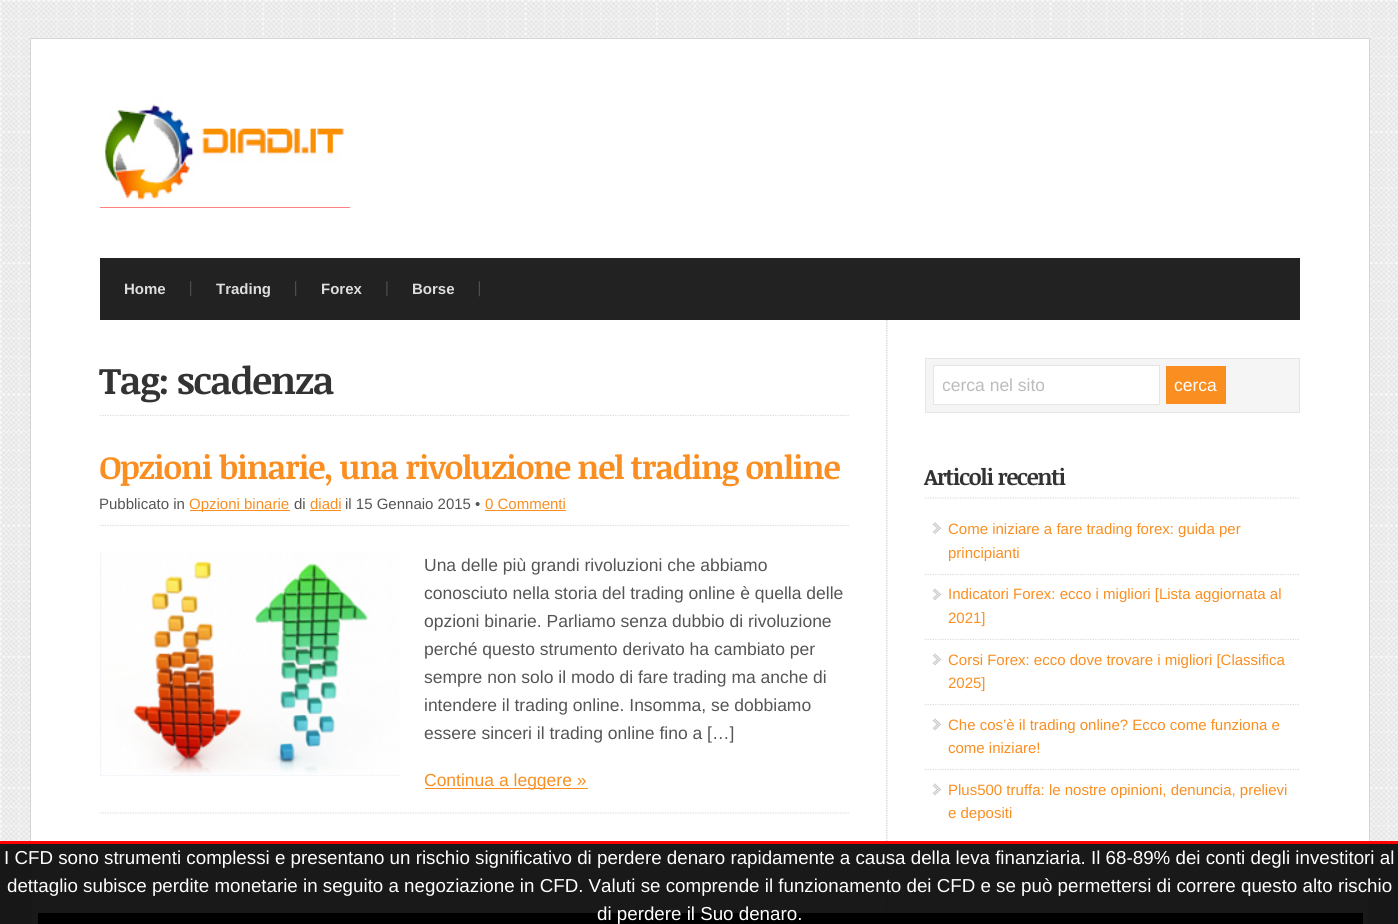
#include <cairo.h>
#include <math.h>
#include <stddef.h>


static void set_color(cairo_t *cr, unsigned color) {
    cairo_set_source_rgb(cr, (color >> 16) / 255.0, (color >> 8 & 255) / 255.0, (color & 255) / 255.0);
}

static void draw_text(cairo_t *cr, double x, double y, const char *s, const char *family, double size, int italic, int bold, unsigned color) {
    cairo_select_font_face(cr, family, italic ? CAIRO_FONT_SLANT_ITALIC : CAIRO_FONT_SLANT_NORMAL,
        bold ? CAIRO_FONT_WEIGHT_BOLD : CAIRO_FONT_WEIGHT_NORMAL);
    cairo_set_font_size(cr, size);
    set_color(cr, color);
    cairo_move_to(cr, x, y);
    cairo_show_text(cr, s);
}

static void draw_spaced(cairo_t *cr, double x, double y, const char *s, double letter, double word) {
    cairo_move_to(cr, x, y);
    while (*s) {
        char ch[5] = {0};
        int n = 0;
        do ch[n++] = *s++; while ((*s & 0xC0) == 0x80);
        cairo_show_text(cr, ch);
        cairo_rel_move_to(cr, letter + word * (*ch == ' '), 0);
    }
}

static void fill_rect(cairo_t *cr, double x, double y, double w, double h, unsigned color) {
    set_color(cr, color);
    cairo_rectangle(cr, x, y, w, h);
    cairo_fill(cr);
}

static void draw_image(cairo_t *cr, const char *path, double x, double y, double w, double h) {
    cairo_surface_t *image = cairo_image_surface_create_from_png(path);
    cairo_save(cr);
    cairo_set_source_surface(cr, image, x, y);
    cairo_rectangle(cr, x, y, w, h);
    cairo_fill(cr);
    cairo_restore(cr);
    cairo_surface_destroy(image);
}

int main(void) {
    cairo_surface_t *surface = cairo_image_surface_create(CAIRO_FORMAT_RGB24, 1398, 924);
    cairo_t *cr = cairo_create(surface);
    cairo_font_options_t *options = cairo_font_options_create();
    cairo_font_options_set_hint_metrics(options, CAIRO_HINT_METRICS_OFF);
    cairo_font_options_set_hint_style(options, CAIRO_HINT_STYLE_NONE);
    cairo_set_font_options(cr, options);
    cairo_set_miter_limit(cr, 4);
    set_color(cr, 0xFFFFFF);
    cairo_paint(cr);
    draw_image(cr, "assets/img1.png", 0, 0, 1398, 924);
    set_color(cr, 0xFFFFFF);
    cairo_rectangle(cr, 30.5, 38.5, 1339, 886);
    cairo_fill_preserve(cr);
    set_color(cr, 0xD5D5D5);
    cairo_set_line_width(cr, 1);
    cairo_stroke(cr);
    fill_rect(cr, 100, 207, 250, 1, 0xFF0000);
    draw_image(cr, "assets/img2.png", 100, 95, 250, 113);
    fill_rect(cr, 100, 258, 1200, 62, 0x222222);
    draw_image(cr, "assets/img3.png", 190, 281, 2, 16);
    draw_text(cr, 124, 294, "Home", "Liberation Sans", 15, 0, 1, 0xDDDDDD);
    draw_image(cr, "assets/img3.png", 295, 281, 2, 16);
    draw_text(cr, 216, 294, "Trading", "Liberation Sans", 15, 0, 1, 0xDDDDDD);
    draw_image(cr, "assets/img4.png", 386, 281, 2, 16);
    draw_text(cr, 321, 294, "Forex", "Liberation Sans", 15, 0, 1, 0xDDDDDD);
    draw_image(cr, "assets/img5.png", 478, 281, 2, 16);
    draw_text(cr, 412, 294, "Borse", "Liberation Sans", 15, 0, 1, 0xDDDDDD);
    draw_image(cr, "assets/img6.png", 886, 320, 2, 593);
    cairo_new_path(cr);
    cairo_move_to(cr, 100, 415.5);
    cairo_line_to(cr, 850, 415.5);
    cairo_set_line_width(cr, 1.2);
    cairo_set_dash(cr, (double[]){1.25, 1.25}, 2, 0);
    cairo_stroke(cr);
    cairo_select_font_face(cr, "Noticia Text", CAIRO_FONT_SLANT_NORMAL, CAIRO_FONT_WEIGHT_BOLD);
    cairo_set_font_size(cr, 37.5);
    set_color(cr, 0x333333);
    draw_spaced(cr, 99, 394, "Tag: scadenza", -1.25, 0);
    cairo_new_path(cr);
    cairo_move_to(cr, 100, 813);
    cairo_line_to(cr, 850, 813);
    set_color(cr, 0xDDDDDD);
    cairo_stroke(cr);
    cairo_set_font_size(cr, 32.5);
    set_color(cr, 0xFA8E21);
    draw_spaced(cr, 99, 479, "Opzioni binarie, una rivoluzione nel trading online", -1.25, 0);
    cairo_new_path(cr);
    cairo_move_to(cr, 100, 525.5);
    cairo_line_to(cr, 850, 525.5);
    set_color(cr, 0xDDDDDD);
    cairo_stroke(cr);
    draw_text(cr, 99, 509, "Pubblicato in", "Liberation Sans", 15, 0, 0, 0x555555);
    fill_rect(cr, 190, 510, 100, 1, 0xFA8E21);
    draw_text(cr, 189, 509, "Opzioni binarie", "Liberation Sans", 15, 0, 0, 0xFA8E21);
    draw_text(cr, 294, 509, "di", "Liberation Sans", 15, 0, 0, 0x555555);
    draw_text(cr, 310, 509, "diadi", "Liberation Sans", 15, 0, 0, 0xFA8E21);
    fill_rect(cr, 310, 510, 31, 1, 0xFA8E21);
    draw_text(cr, 345, 509, "il 15 Gennaio 2015 •", "Liberation Sans", 15, 0, 0, 0x555555);
    draw_text(cr, 485, 509, "0 Commenti", "Liberation Sans", 15, 0, 0, 0xFA8E21);
    fill_rect(cr, 485, 510, 81, 1, 0xFA8E21);
    draw_image(cr, "assets/img7.png", 100, 551, 300, 226);
    draw_text(cr, 424, 571, "Una delle più grandi rivoluzioni che abbiamo", "Liberation Sans", 17.5, 0, 0, 0x555555);
    draw_text(cr, 424, 599, "conosciuto nella storia del trading online è quella delle", "Liberation Sans", 17.5, 0, 0, 0x555555);
    draw_text(cr, 424, 627, "opzioni binarie. Parliamo senza dubbio di rivoluzione", "Liberation Sans", 17.5, 0, 0, 0x555555);
    draw_text(cr, 424, 655, "perché questo strumento derivato ha cambiato per", "Liberation Sans", 17.5, 0, 0, 0x555555);
    draw_text(cr, 424, 683, "sempre non solo il modo di fare trading ma anche di", "Liberation Sans", 17.5, 0, 0, 0x555555);
    draw_text(cr, 424, 711, "intendere il trading online. Insomma, se dobbiamo", "Liberation Sans", 17.5, 0, 0, 0x555555);
    draw_text(cr, 424, 739, "essere sinceri il trading online fino a […]", "Liberation Sans", 17.5, 0, 0, 0x555555);
    fill_rect(cr, 425, 788, 163, 1, 0xFA8E21);
    draw_text(cr, 424, 786, "Continua a leggere »", "Liberation Sans", 17.5, 0, 0, 0xFA8E21);
    set_color(cr, 0xF5F5F5);
    cairo_rectangle(cr, 925.5, 358.5, 374, 54);
    cairo_fill_preserve(cr);
    set_color(cr, 0xE5E5E5);
    cairo_set_line_width(cr, 1);
    cairo_set_dash(cr, NULL, 0, 0);
    cairo_stroke(cr);
    set_color(cr, 0xFFFFFF);
    cairo_rectangle(cr, 933.5, 365.5, 226, 39);
    cairo_fill_preserve(cr);
    set_color(cr, 0xE5E5E5);
    cairo_stroke(cr);
    cairo_save(cr);
    cairo_rectangle(cr, 943, 375, 207, 20);
    cairo_clip(cr);
    draw_text(cr, 942, 391, "cerca nel sito", "Liberation Sans", 17.5, 0, 0, 0xBBBBBB);
    cairo_restore(cr);
    fill_rect(cr, 1166, 366, 60, 38, 0xFA8E21);
    draw_text(cr, 1174, 391, "cerca", "Liberation Sans", 17.5, 0, 0, 0xFFFFFF);
    cairo_new_path(cr);
    cairo_move_to(cr, 925, 498);
    cairo_line_to(cr, 1300, 498);
    set_color(cr, 0xDDDDDD);
    cairo_set_line_width(cr, 1.2);
    cairo_set_dash(cr, (double[]){1.25, 1.25}, 2, 0);
    cairo_stroke(cr);
    cairo_select_font_face(cr, "Noticia Text", CAIRO_FONT_SLANT_NORMAL, CAIRO_FONT_WEIGHT_BOLD);
    cairo_set_font_size(cr, 22.5);
    set_color(cr, 0x333333);
    draw_spaced(cr, 924, 485, "Articoli recenti", -1.25, 0);
    draw_image(cr, "assets/img8.png", 932, 522, 10, 12);
    cairo_new_path(cr);
    cairo_move_to(cr, 925, 574.5);
    cairo_line_to(cr, 1300, 574.5);
    set_color(cr, 0xDDDDDD);
    cairo_stroke(cr);
    draw_text(cr, 948, 534, "Come iniziare a fare trading forex: guida per", "Liberation Sans", 15, 0, 0, 0xFA8E21);
    draw_text(cr, 948, 558, "principianti", "Liberation Sans", 15, 0, 0, 0xFA8E21);
    draw_image(cr, "assets/img9.png", 932, 588, 10, 13);
    cairo_new_path(cr);
    cairo_move_to(cr, 925, 639.5);
    cairo_line_to(cr, 1300, 639.5);
    set_color(cr, 0xDDDDDD);
    cairo_stroke(cr);
    draw_text(cr, 948, 599, "Indicatori Forex: ecco i migliori [Lista aggiornata al", "Liberation Sans", 15, 0, 0, 0xFA8E21);
    draw_text(cr, 948, 623, "2021]", "Liberation Sans", 15, 0, 0, 0xFA8E21);
    draw_image(cr, "assets/img10.png", 932, 653, 10, 13);
    cairo_new_path(cr);
    cairo_move_to(cr, 925, 704.5);
    cairo_line_to(cr, 1300, 704.5);
    set_color(cr, 0xDDDDDD);
    cairo_stroke(cr);
    draw_text(cr, 948, 665, "Corsi Forex: ecco dove trovare i migliori [Classifica", "Liberation Sans", 15, 0, 0, 0xFA8E21);
    draw_text(cr, 948, 688, "2025]", "Liberation Sans", 15, 0, 0, 0xFA8E21);
    draw_image(cr, "assets/img10.png", 932, 718, 10, 13);
    cairo_new_path(cr);
    cairo_move_to(cr, 925, 769.5);
    cairo_line_to(cr, 1300, 769.5);
    set_color(cr, 0xDDDDDD);
    cairo_stroke(cr);
    draw_text(cr, 948, 730, "Che cos’è il trading online? Ecco come funziona e", "Liberation Sans", 15, 0, 0, 0xFA8E21);
    draw_text(cr, 948, 753, "come iniziare!", "Liberation Sans", 15, 0, 0, 0xFA8E21);
    draw_image(cr, "assets/img9.png", 932, 783, 10, 13);
    draw_text(cr, 948, 795, "Plus500 truffa: le nostre opinioni, denuncia, prelievi", "Liberation Sans", 15, 0, 0, 0xFA8E21);
    draw_text(cr, 948, 818, "e depositi", "Liberation Sans", 15, 0, 0, 0xFA8E21);
    fill_rect(cr, 38, 913, 1325, 11, 0x000000);
    cairo_set_source_rgba(cr, 0, 0, 0, 0.9);
    cairo_rectangle(cr, 0, 844, 1398, 80);
    cairo_fill(cr);
    fill_rect(cr, 0, 841, 1398, 3, 0xFF0000);
    draw_text(cr, 4, 864, "I CFD sono strumenti complessi e presentano un rischio significativo di perdere denaro rapidamente a causa della leva finanziaria. Il 68-89% dei conti degli investitori al", "Liberation Sans", 18.75, 0, 0, 0xFFFFFF);
    draw_text(cr, 7, 892, "dettaglio subisce perdite monetarie in seguito a negoziazione in CFD. Valuti se comprende il funzionamento dei CFD e se può permettersi di correre questo alto rischio", "Liberation Sans", 18.75, 0, 0, 0xFFFFFF);
    draw_text(cr, 597, 920, "di perdere il Suo denaro.", "Liberation Sans", 18.75, 0, 0, 0xFFFFFF);
    cairo_surface_write_to_png(surface, "output.png");
    cairo_font_options_destroy(options);
    cairo_destroy(cr);
    cairo_surface_destroy(surface);
    return 0;
}
